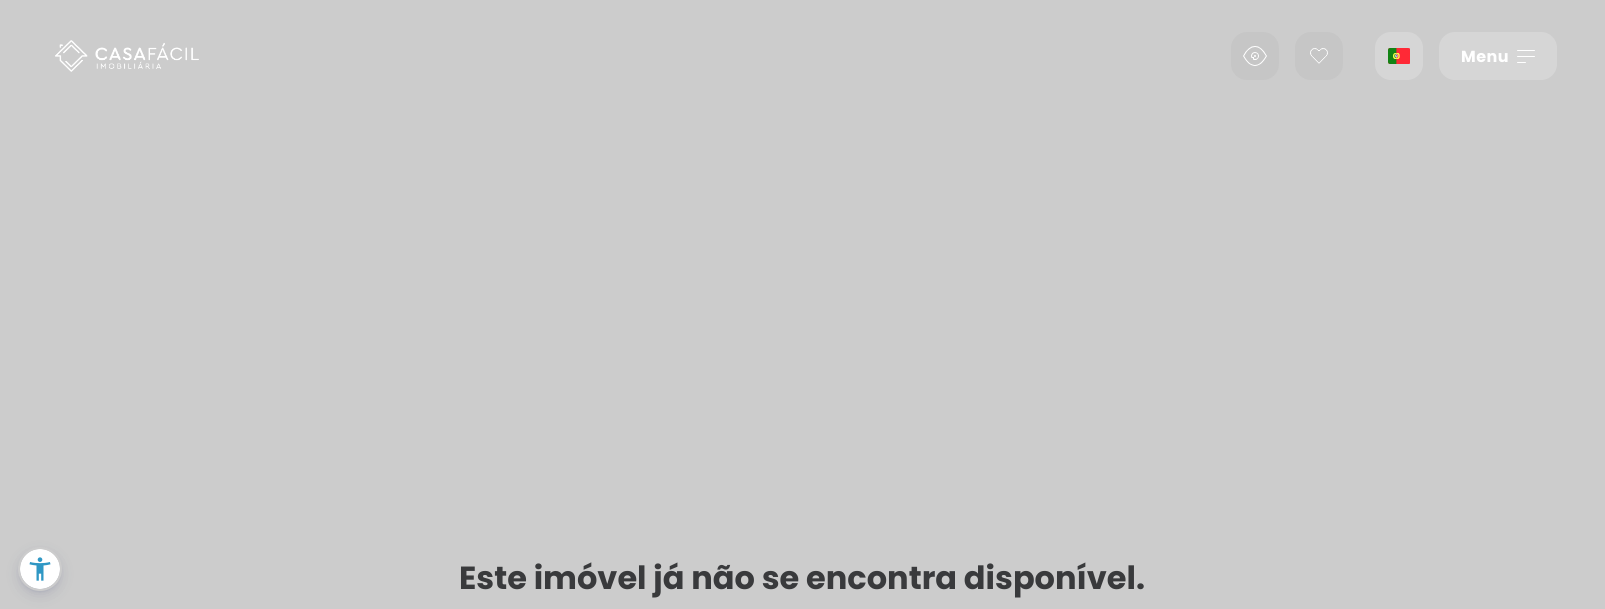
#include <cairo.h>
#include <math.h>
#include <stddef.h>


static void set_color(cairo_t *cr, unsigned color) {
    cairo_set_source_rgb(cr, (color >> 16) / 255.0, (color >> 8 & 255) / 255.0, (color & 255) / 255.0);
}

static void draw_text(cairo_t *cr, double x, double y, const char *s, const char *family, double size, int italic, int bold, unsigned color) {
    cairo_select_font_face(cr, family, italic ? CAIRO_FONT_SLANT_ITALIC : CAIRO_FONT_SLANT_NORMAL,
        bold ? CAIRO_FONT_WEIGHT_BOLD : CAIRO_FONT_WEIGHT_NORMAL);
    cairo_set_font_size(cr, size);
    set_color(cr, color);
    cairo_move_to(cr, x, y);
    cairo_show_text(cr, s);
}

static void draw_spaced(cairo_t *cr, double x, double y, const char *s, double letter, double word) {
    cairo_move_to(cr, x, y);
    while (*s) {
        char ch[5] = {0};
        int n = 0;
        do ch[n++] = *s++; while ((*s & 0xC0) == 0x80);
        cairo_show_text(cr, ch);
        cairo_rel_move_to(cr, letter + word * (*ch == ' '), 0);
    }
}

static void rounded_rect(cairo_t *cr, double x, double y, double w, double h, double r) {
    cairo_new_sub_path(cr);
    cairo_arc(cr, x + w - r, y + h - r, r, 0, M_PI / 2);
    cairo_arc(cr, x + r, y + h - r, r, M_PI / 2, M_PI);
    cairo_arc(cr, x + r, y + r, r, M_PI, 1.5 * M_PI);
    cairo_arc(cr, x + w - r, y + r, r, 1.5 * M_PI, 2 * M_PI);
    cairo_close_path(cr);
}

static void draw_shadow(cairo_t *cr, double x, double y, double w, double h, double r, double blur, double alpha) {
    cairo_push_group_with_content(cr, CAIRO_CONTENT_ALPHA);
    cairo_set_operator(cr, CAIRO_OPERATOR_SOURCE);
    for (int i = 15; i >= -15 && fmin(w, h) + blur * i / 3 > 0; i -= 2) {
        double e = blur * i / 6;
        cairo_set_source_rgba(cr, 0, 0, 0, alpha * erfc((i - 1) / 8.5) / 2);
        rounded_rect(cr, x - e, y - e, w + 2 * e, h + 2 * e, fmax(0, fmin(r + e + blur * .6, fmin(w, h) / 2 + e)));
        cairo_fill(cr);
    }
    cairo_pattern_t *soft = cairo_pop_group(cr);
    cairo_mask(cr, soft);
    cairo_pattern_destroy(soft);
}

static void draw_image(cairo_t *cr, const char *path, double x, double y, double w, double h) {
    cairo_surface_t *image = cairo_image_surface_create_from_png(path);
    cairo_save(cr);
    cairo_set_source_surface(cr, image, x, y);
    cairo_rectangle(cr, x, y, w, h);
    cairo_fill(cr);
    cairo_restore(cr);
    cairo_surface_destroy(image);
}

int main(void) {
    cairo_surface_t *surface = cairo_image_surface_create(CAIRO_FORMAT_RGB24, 1605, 609);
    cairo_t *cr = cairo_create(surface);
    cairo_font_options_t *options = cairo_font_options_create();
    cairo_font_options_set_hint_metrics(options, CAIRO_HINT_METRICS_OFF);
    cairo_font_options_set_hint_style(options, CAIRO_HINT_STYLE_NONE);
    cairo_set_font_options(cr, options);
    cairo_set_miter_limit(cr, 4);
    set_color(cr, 0xCCCCCC);
    cairo_paint(cr);
    set_color(cr, 0x5D6494);
    draw_shadow(cr, 20, 551, 40, 40, 20, 2, 0.2);
    set_color(cr, 0x252C61);
    draw_shadow(cr, 20, 554, 40, 40, 20, 7.5, 0.15);
    set_color(cr, 0xFFFFFF);
    cairo_arc(cr, 40, 569, 19, 0, 2 * M_PI);
    cairo_fill_preserve(cr);
    cairo_stroke(cr);
    cairo_arc(cr, 40, 569, 21, 0, 2 * M_PI);
    set_color(cr, 0xCCCCCC);
    cairo_stroke(cr);
    draw_image(cr, "assets/img1.png", 29, 557, 22, 24);
    draw_image(cr, "assets/img2.png", 55, 40, 144, 32);
    set_color(cr, 0xC6C6C6);
    rounded_rect(cr, 1231, 32, 48, 48, 16);
    cairo_fill(cr);
    draw_image(cr, "assets/img3.png", 1243, 46, 24, 20);
    rounded_rect(cr, 1295, 32, 48, 48, 16);
    cairo_fill(cr);
    draw_image(cr, "assets/img4.png", 1310, 48, 18, 16);
    set_color(cr, 0xD6D6D6);
    rounded_rect(cr, 1375, 32, 48, 48, 16);
    cairo_fill(cr);
    draw_image(cr, "assets/img5.png", 1388, 48, 22, 16);
    rounded_rect(cr, 1439, 32, 118, 48, 16);
    cairo_fill(cr);
    cairo_select_font_face(cr, "Poppins", CAIRO_FONT_SLANT_NORMAL, CAIRO_FONT_WEIGHT_BOLD);
    cairo_set_font_size(cr, 16);
    set_color(cr, 0xFFFFFF);
    draw_spaced(cr, 1461, 62, "Menu", 0.5, 0);
    rounded_rect(cr, 1517, 50, 18, 1, 0.5);
    cairo_fill(cr);
    rounded_rect(cr, 1517, 56, 18, 1, 0.5);
    cairo_fill(cr);
    rounded_rect(cr, 1517, 62, 9, 1, 0.5);
    cairo_fill(cr);
    draw_text(cr, 459, 589, "Este imóvel já não se encontra disponível.", "Poppins", 32, 0, 1, 0x393A3C);
    cairo_surface_write_to_png(surface, "output.png");
    cairo_font_options_destroy(options);
    cairo_destroy(cr);
    cairo_surface_destroy(surface);
    return 0;
}
